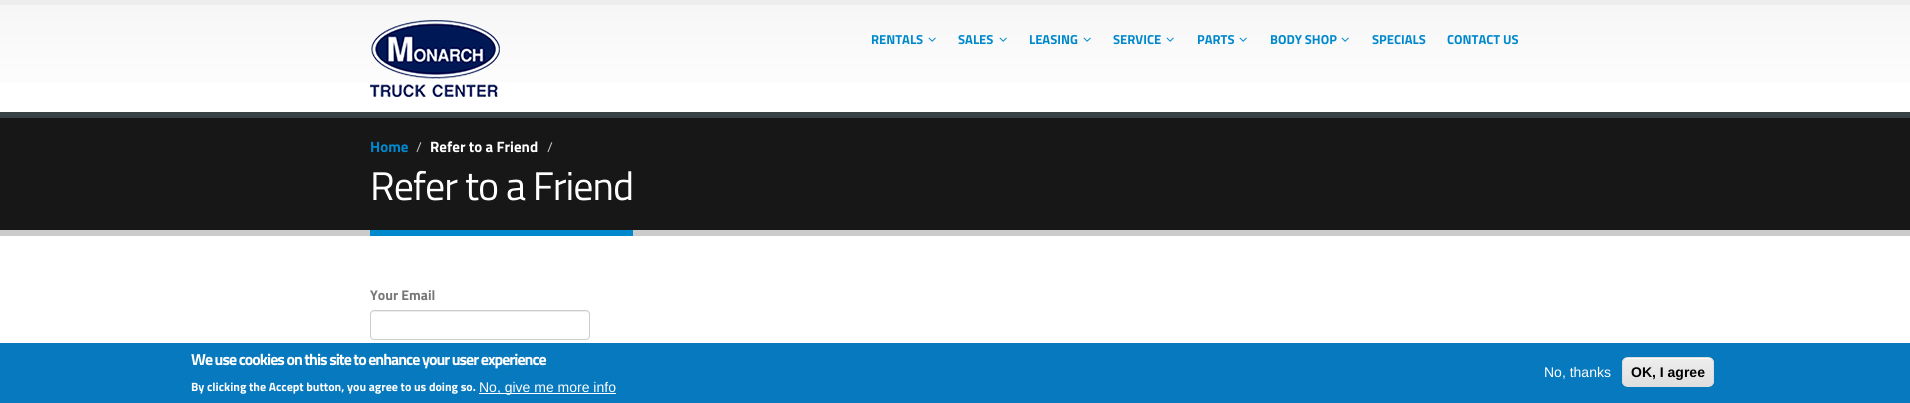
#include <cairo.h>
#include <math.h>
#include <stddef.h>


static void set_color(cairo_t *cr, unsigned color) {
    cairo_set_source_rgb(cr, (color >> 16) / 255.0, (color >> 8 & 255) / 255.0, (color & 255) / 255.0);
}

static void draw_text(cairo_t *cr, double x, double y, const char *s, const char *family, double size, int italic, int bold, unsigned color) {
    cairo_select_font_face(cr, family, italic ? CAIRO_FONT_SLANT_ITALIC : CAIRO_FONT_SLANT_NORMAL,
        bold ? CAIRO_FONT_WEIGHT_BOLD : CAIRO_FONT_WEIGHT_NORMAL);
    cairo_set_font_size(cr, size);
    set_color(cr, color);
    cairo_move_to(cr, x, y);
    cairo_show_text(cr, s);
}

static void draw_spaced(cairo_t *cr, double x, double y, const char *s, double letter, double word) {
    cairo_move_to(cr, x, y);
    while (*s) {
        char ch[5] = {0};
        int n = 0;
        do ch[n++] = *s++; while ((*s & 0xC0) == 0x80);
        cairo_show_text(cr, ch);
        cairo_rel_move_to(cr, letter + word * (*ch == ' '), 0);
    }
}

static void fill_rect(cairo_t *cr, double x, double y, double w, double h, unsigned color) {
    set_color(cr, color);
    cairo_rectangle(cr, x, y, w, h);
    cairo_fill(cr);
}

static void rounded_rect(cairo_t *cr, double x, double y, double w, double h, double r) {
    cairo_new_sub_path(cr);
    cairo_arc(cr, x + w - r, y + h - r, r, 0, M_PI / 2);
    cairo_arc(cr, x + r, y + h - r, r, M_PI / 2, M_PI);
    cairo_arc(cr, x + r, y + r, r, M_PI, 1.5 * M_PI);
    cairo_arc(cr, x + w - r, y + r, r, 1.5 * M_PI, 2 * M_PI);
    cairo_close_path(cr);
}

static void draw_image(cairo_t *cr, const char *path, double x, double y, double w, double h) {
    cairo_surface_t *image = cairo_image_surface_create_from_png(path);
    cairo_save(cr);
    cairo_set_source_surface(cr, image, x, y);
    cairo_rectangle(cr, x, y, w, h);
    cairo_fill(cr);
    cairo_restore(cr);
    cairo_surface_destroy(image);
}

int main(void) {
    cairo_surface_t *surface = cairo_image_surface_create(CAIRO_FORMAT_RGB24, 1910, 403);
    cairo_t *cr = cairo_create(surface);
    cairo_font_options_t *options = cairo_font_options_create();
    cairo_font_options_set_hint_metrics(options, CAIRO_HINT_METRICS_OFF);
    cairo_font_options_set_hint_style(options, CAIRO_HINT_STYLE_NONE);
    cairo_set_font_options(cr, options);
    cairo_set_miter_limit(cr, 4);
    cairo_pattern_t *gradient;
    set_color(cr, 0xFFFFFF);
    cairo_paint(cr);
    gradient = cairo_pattern_create_linear(955, 5, 955, 112);
    cairo_pattern_add_color_stop_rgba(gradient, 0, 0.965, 0.965, 0.965, 1);
    cairo_pattern_add_color_stop_rgba(gradient, 1, 1, 1, 1, 1);
    cairo_set_source(cr, gradient);
    cairo_pattern_destroy(gradient);
    cairo_rectangle(cr, 0, 5, 1910, 77);
    cairo_fill(cr);
    fill_rect(cr, 0, 0, 1910, 5, 0xEDEDED);
    draw_image(cr, "assets/img1.png", 370, 20, 130, 77);
    draw_text(cr, 871, 44, "RENTALS", "Titillium Web", 13, 0, 1, 0x0088CC);
    draw_image(cr, "assets/img2.png", 928, 37, 8, 5);
    draw_text(cr, 958, 44, "SALES", "Titillium Web", 13, 0, 1, 0x0088CC);
    draw_image(cr, "assets/img2.png", 999, 37, 8, 5);
    draw_text(cr, 1029, 44, "LEASING", "Titillium Web", 13, 0, 1, 0x0088CC);
    draw_image(cr, "assets/img2.png", 1083, 37, 8, 5);
    draw_text(cr, 1113, 44, "SERVICE", "Titillium Web", 13, 0, 1, 0x0088CC);
    draw_image(cr, "assets/img2.png", 1166, 37, 8, 5);
    draw_text(cr, 1197, 44, "PARTS", "Titillium Web", 13, 0, 1, 0x0088CC);
    draw_image(cr, "assets/img2.png", 1239, 37, 8, 5);
    draw_text(cr, 1270, 44, "BODY SHOP", "Titillium Web", 13, 0, 1, 0x0088CC);
    draw_image(cr, "assets/img2.png", 1341, 37, 8, 5);
    draw_text(cr, 1372, 44, "SPECIALS", "Titillium Web", 13, 0, 1, 0x0088CC);
    draw_text(cr, 1447, 44, "CONTACT US", "Titillium Web", 13, 0, 1, 0x0088CC);
    fill_rect(cr, 0, 118, 1910, 112, 0x171717);
    fill_rect(cr, 0, 112, 1910, 6, 0x384246);
    fill_rect(cr, 0, 230, 1910, 6, 0xCBCBCB);
    draw_text(cr, 370, 152, "Home", "Titillium Web", 15, 0, 1, 0x0088CC);
    draw_text(cr, 416, 152, "/", "Titillium Web", 14, 0, 0, 0xCCCCCC);
    draw_text(cr, 430, 152, "Refer to a Friend", "Titillium Web", 15, 0, 1, 0xFFFFFF);
    draw_text(cr, 547, 152, "/", "Titillium Web", 14, 0, 0, 0xCCCCCC);
    fill_rect(cr, 370, 230, 263, 6, 0x0088CC);
    cairo_set_font_size(cr, 40);
    set_color(cr, 0xFFFFFF);
    draw_spaced(cr, 370, 200, "Refer to a Friend", -1, 0);
    draw_text(cr, 370, 300, "Your Email", "Titillium Web", 14, 0, 1, 0x777777);
    set_color(cr, 0xECECEC);
    cairo_new_path(cr);
    cairo_move_to(cr, 374, 312);
    cairo_line_to(cr, 586, 312);
    cairo_curve_to(cr, 588, 312, 589, 313, 589, 315);
    cairo_line_to(cr, 589, 314);
    cairo_curve_to(cr, 589, 312, 588, 311, 586, 311);
    cairo_line_to(cr, 374, 311);
    cairo_curve_to(cr, 372, 311, 371, 312, 371, 314);
    cairo_line_to(cr, 371, 315);
    cairo_curve_to(cr, 371, 313, 372, 312, 374, 312);
    cairo_close_path(cr);
    cairo_fill(cr);
    rounded_rect(cr, 370.5, 310.5, 219, 29, 3.5);
    set_color(cr, 0xCCCCCC);
    cairo_set_line_width(cr, 1);
    cairo_stroke(cr);
    fill_rect(cr, 0, 343, 1910, 60, 0x0779BF);
    cairo_set_font_size(cr, 16);
    set_color(cr, 0xFFFFFF);
    draw_spaced(cr, 191, 365, "We use cookies on this site to enhance your user experience", -1, 0);
    draw_text(cr, 191, 391, "By clicking the Accept button, you agree to us doing so.", "Titillium Web", 12, 0, 1, 0xFFFFFF);
    fill_rect(cr, 479, 393, 137, 1, 0xFFFFFF);
    draw_text(cr, 479, 392, "No, give me more info", "Liberation Sans", 14, 0, 0, 0xFFFFFF);
    draw_text(cr, 1544, 377, "No, thanks", "Liberation Sans", 14, 0, 0, 0xFFFFFF);
    cairo_save(cr);
    rounded_rect(cr, 1622, 357, 92, 30, 6);
    cairo_clip(cr);
    gradient = cairo_pattern_create_linear(1668, 358, 1668, 386);
    cairo_pattern_add_color_stop_rgba(gradient, 0.05, 0.929, 0.929, 0.929, 1);
    cairo_pattern_add_color_stop_rgba(gradient, 1, 0.875, 0.875, 0.875, 1);
    cairo_set_source(cr, gradient);
    cairo_pattern_destroy(gradient);
    cairo_rectangle(cr, 1622, 358, 92, 28);
    cairo_fill(cr);
    cairo_restore(cr);
    cairo_new_path(cr);
    cairo_move_to(cr, 1628, 359);
    cairo_line_to(cr, 1708, 359);
    cairo_curve_to(cr, 1711, 359, 1713, 361, 1713, 364);
    cairo_curve_to(cr, 1713, 355, 1700, 358, 1695, 358);
    cairo_line_to(cr, 1641, 358);
    cairo_curve_to(cr, 1636, 358, 1623, 355, 1623, 364);
    cairo_curve_to(cr, 1623, 361, 1625, 359, 1628, 359);
    cairo_close_path(cr);
    cairo_fill(cr);
    rounded_rect(cr, 1622.5, 357.5, 91, 29, 5.5);
    set_color(cr, 0xDCDCDC);
    cairo_stroke(cr);
    draw_text(cr, 1631, 377, "OK, I agree", "Liberation Sans", 14, 0, 1, 0x000000);
    cairo_surface_write_to_png(surface, "output.png");
    cairo_font_options_destroy(options);
    cairo_destroy(cr);
    cairo_surface_destroy(surface);
    return 0;
}
